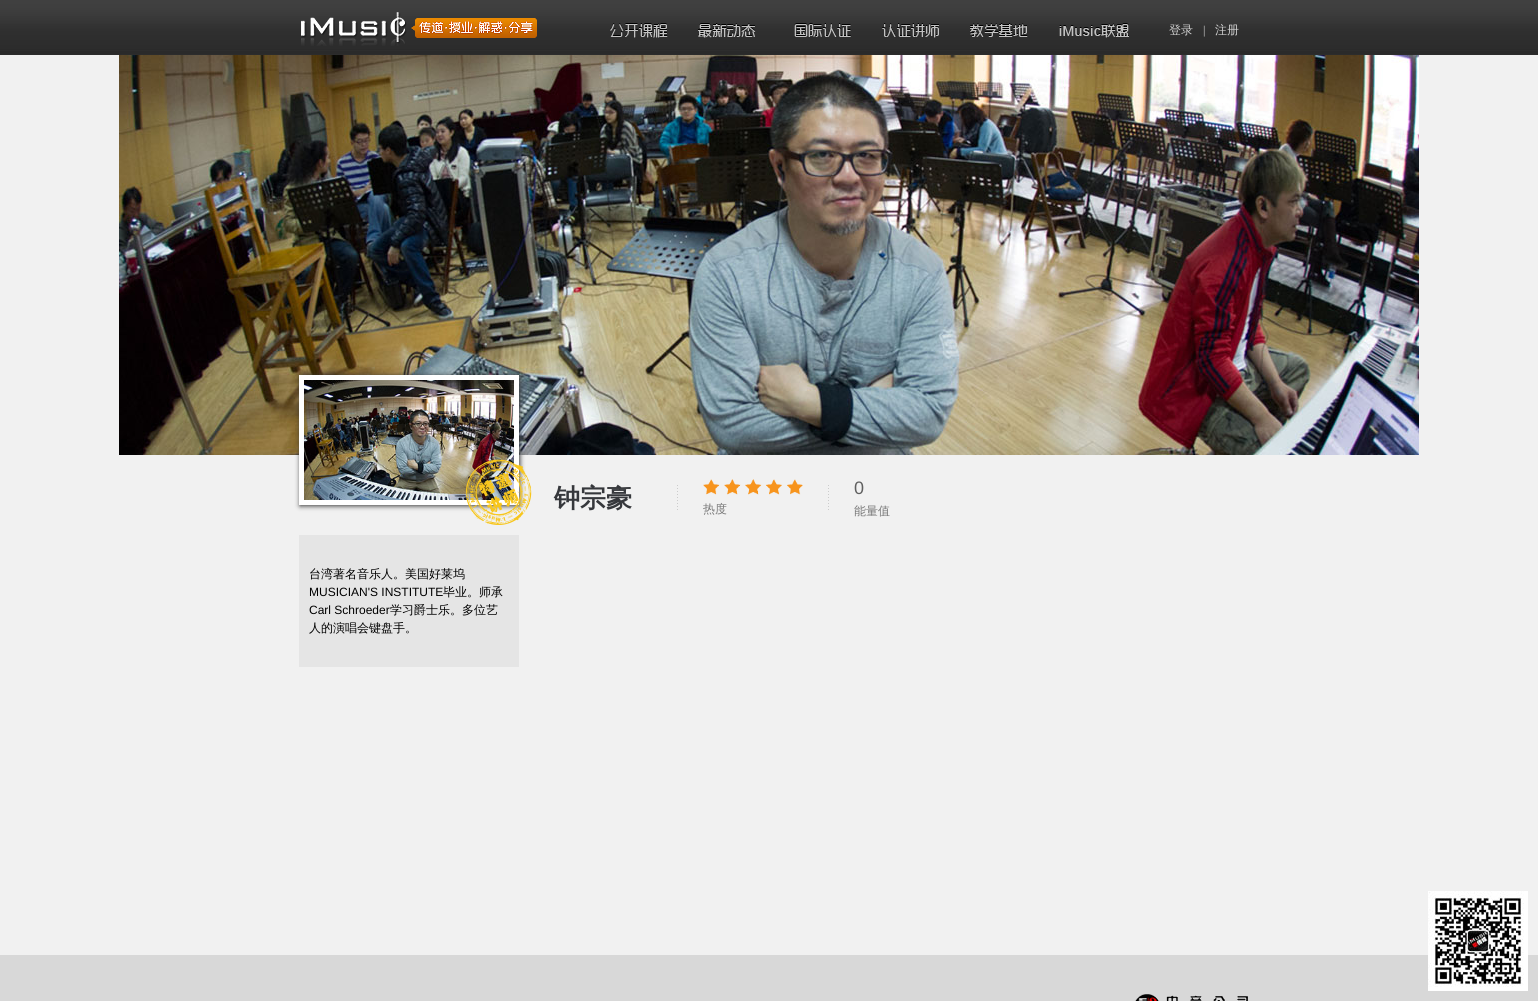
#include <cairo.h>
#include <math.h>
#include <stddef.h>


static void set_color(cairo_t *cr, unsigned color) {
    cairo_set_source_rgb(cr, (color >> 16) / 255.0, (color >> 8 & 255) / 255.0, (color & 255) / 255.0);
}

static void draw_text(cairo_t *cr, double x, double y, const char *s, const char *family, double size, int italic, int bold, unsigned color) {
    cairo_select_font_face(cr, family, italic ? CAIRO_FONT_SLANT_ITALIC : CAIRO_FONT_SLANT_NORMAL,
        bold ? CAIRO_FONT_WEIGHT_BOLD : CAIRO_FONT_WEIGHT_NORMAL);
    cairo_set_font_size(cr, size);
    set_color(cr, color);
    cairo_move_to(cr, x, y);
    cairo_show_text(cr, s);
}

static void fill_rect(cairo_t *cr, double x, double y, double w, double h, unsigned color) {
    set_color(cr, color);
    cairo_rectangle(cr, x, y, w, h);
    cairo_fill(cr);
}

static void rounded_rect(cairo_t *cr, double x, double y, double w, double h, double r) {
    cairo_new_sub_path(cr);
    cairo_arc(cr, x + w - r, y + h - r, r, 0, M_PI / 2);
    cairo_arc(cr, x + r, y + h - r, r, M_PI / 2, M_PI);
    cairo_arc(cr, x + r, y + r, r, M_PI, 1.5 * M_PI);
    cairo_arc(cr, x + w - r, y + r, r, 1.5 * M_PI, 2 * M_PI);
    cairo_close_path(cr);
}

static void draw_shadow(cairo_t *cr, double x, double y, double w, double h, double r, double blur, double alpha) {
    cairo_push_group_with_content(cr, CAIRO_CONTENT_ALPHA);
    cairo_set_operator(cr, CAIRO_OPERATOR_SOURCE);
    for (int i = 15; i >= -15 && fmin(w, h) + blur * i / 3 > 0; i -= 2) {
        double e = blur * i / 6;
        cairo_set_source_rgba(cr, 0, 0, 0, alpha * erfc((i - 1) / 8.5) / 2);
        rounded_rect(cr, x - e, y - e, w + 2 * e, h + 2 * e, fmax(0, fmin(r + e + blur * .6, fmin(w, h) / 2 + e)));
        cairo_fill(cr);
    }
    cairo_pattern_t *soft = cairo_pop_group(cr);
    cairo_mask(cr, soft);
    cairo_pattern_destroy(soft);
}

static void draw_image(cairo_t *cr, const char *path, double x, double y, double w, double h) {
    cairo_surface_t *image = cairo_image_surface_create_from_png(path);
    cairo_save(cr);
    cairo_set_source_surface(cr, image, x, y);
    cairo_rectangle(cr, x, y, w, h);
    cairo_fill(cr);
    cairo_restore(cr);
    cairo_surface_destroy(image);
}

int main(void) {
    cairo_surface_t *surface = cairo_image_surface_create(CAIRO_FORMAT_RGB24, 1538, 1001);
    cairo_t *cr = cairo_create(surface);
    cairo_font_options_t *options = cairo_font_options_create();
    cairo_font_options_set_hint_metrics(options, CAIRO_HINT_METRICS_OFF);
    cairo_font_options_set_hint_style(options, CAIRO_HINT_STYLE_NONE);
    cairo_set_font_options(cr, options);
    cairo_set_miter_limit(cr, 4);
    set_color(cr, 0xF1F1F1);
    cairo_paint(cr);
    draw_image(cr, "assets/img1.png", 0, 0, 1538, 55);
    draw_image(cr, "assets/img2.png", 301, 12, 236, 34);
    draw_image(cr, "assets/img3.png", 610, 23, 58, 15);
    draw_image(cr, "assets/img4.png", 698, 23, 58, 15);
    draw_image(cr, "assets/img5.png", 794, 23, 57, 14);
    draw_image(cr, "assets/img6.png", 882, 23, 57, 15);
    draw_image(cr, "assets/img7.png", 970, 23, 58, 14);
    draw_image(cr, "assets/img8.png", 1059, 23, 70, 15);
    draw_text(cr, 1169, 34, "登录", "WenQuanYi Zen Hei Medium", 12, 0, 0, 0xCFCFCF);
    draw_text(cr, 1203, 34, "|", "Liberation Serif", 12, 0, 0, 0xCFCFCF);
    draw_text(cr, 1215, 34, "注册", "WenQuanYi Zen Hei Medium", 12, 0, 0, 0xCFCFCF);
    draw_image(cr, "assets/img9.png", 119, 55, 1300, 400);
    draw_text(cr, 554, 507, "钟宗豪", "WenQuanYi Zen Hei", 26, 0, 1, 0x36383C);
    draw_image(cr, "assets/img10.png", 677, 485, 1, 25);
    fill_rect(cr, 703, 479, 100, 16, 0xF7941D);
    draw_image(cr, "assets/img11.png", 703, 475, 100, 23);
    draw_text(cr, 703, 513, "热度", "WenQuanYi Zen Hei Medium", 12, 0, 0, 0x787878);
    draw_image(cr, "assets/img10.png", 828, 485, 1, 25);
    draw_text(cr, 854, 494, "0", "Liberation Sans", 18, 0, 0, 0x606060);
    draw_text(cr, 854, 515, "能量值", "WenQuanYi Zen Hei Medium", 12, 0, 0, 0x787878);
    set_color(cr, 0x373737);
    draw_shadow(cr, 300, 376, 220, 130, 0, 2.5, 1);
    fill_rect(cr, 299, 375, 220, 130, 0xFFFFFF);
    draw_image(cr, "assets/img12.png", 304, 380, 210, 120);
    draw_image(cr, "assets/img13.png", 465, 459, 67, 66);
    fill_rect(cr, 299, 535, 220, 132, 0xE5E5E5);
    draw_text(cr, 309, 578, "台湾著名音乐人。美国好莱坞", "WenQuanYi Zen Hei Medium", 12, 0, 0, 0x000000);
    draw_text(cr, 309, 596, "MUSICIAN'S INSTITUTE", "Liberation Sans", 12, 0, 0, 0x000000);
    draw_text(cr, 443, 596, "毕业。师承", "WenQuanYi Zen Hei Medium", 12, 0, 0, 0x000000);
    draw_text(cr, 309, 614, "Carl Schroeder", "Liberation Sans", 12, 0, 0, 0x000000);
    draw_text(cr, 390, 614, "学习爵士乐。多位艺", "WenQuanYi Zen Hei Medium", 12, 0, 0, 0x000000);
    draw_text(cr, 309, 632, "人的演唱会键盘手。", "WenQuanYi Zen Hei Medium", 12, 0, 0, 0x000000);
    fill_rect(cr, 0, 955, 1538, 46, 0xD8D8D8);
    draw_image(cr, "assets/img14.png", 1428, 891, 100, 100);
    draw_image(cr, "assets/img15.png", 1135, 994, 113, 7);
    cairo_surface_write_to_png(surface, "output.png");
    cairo_font_options_destroy(options);
    cairo_destroy(cr);
    cairo_surface_destroy(surface);
    return 0;
}
